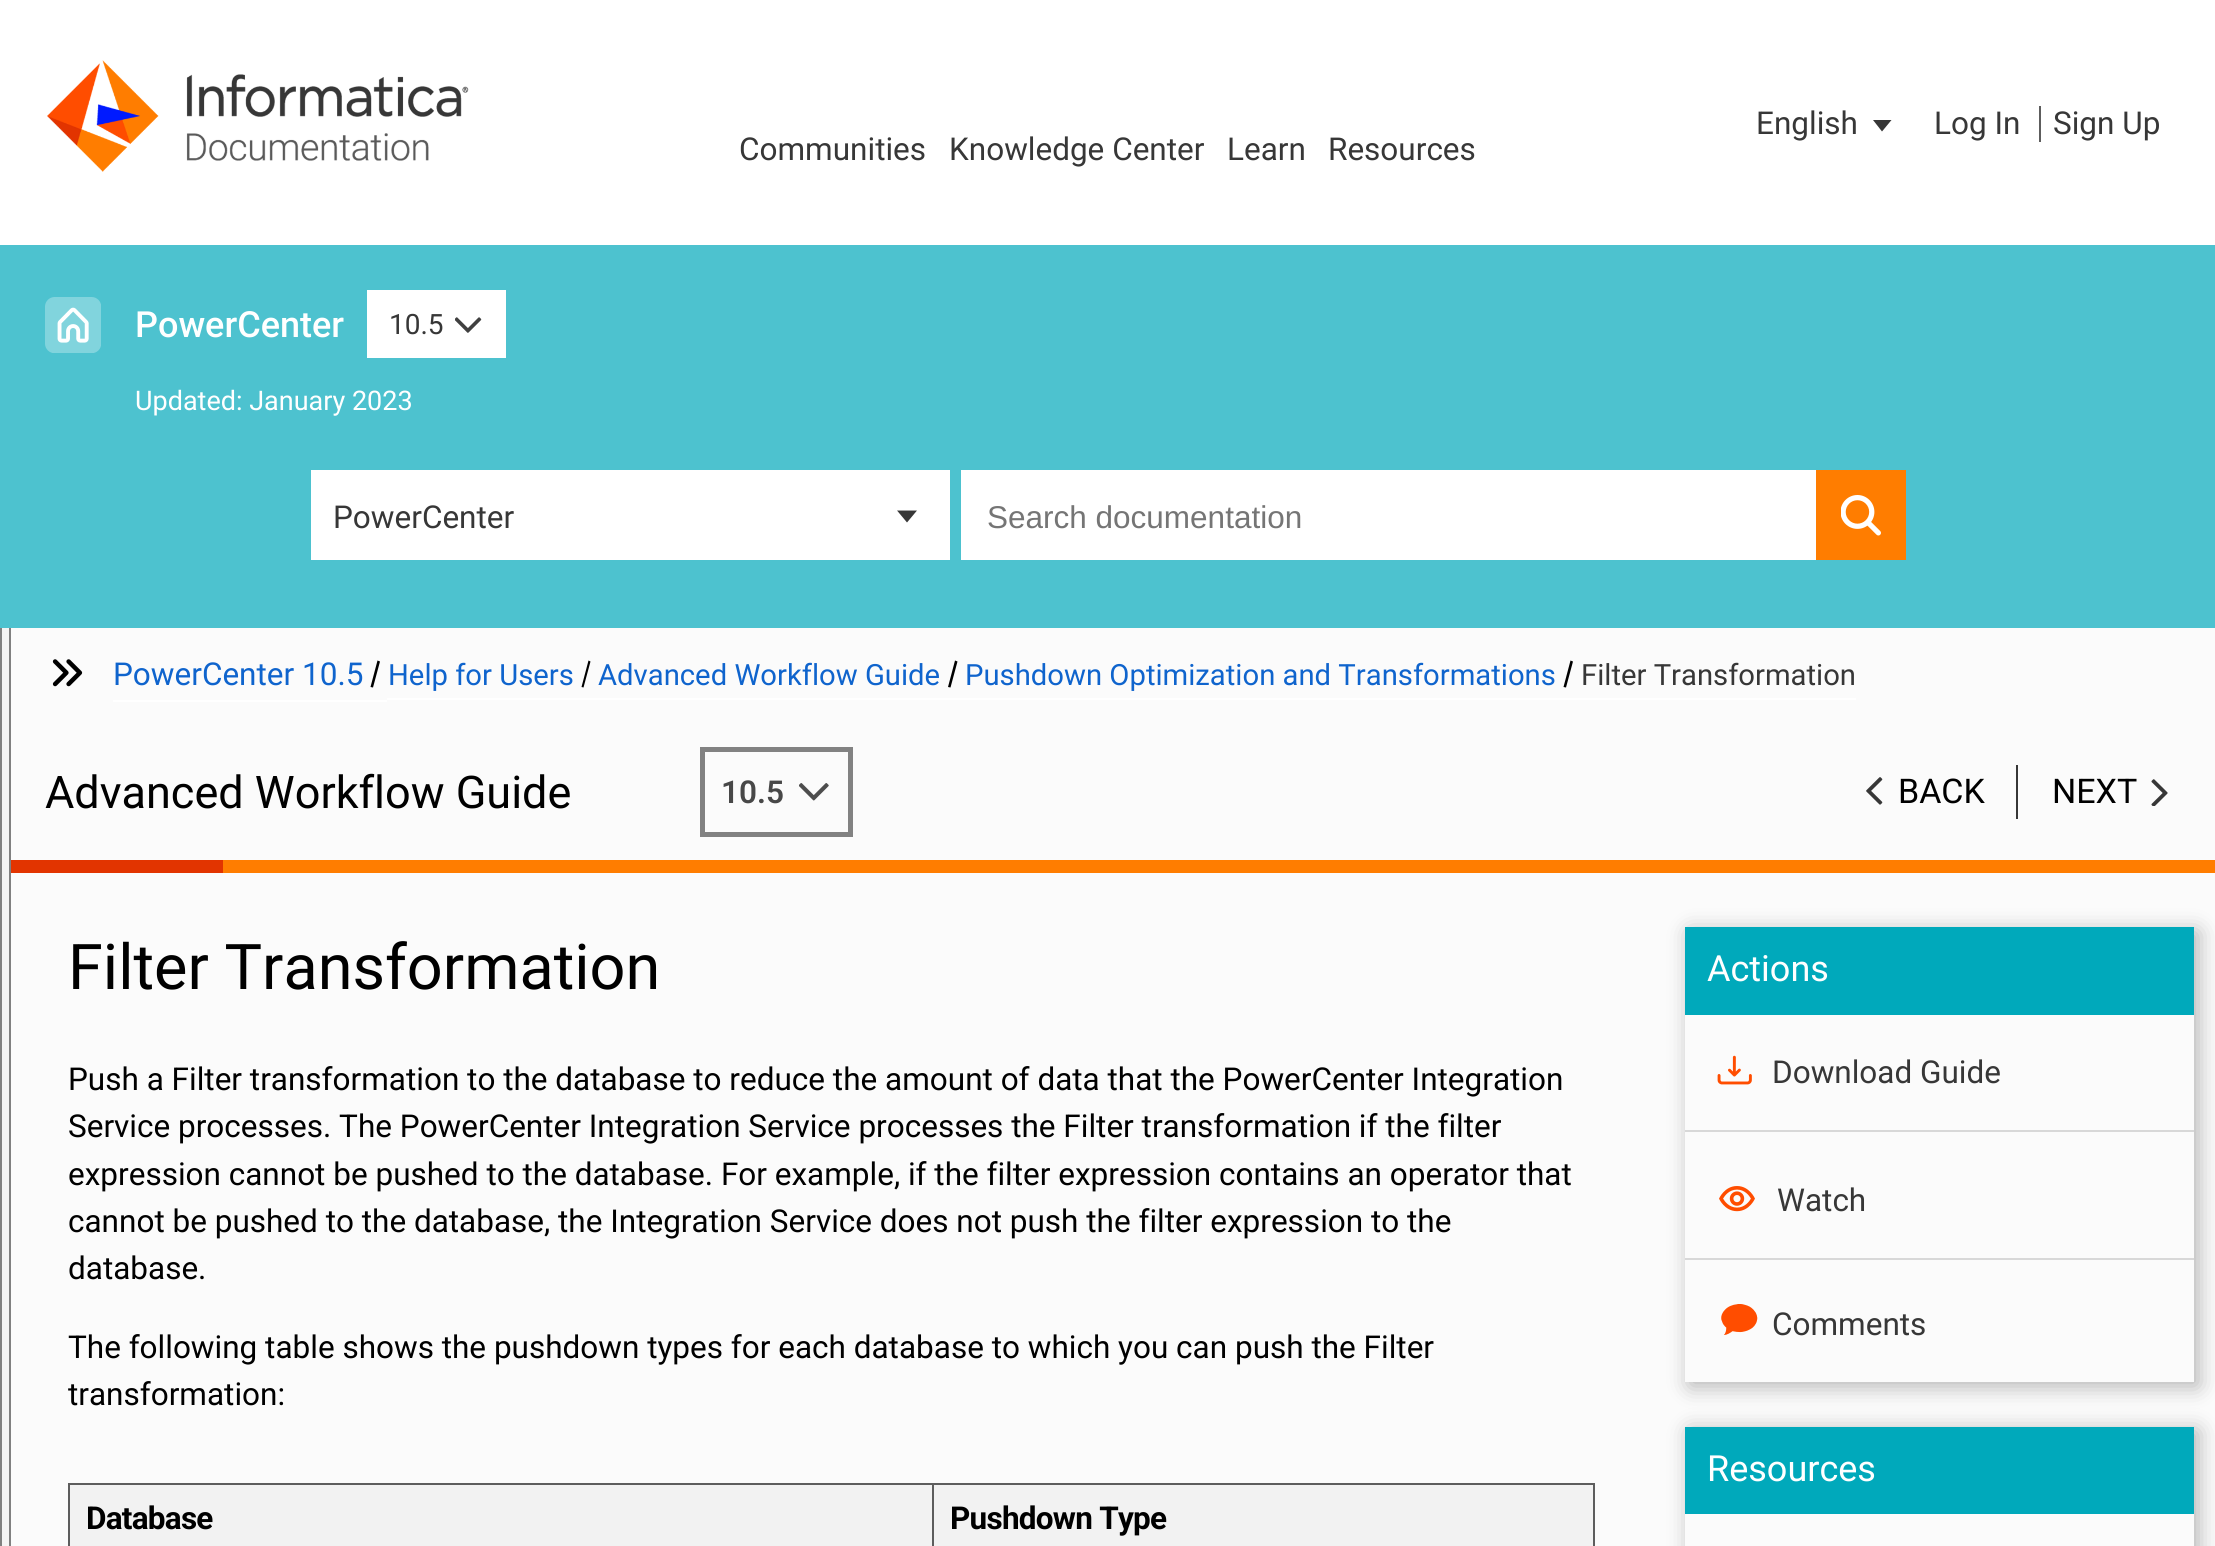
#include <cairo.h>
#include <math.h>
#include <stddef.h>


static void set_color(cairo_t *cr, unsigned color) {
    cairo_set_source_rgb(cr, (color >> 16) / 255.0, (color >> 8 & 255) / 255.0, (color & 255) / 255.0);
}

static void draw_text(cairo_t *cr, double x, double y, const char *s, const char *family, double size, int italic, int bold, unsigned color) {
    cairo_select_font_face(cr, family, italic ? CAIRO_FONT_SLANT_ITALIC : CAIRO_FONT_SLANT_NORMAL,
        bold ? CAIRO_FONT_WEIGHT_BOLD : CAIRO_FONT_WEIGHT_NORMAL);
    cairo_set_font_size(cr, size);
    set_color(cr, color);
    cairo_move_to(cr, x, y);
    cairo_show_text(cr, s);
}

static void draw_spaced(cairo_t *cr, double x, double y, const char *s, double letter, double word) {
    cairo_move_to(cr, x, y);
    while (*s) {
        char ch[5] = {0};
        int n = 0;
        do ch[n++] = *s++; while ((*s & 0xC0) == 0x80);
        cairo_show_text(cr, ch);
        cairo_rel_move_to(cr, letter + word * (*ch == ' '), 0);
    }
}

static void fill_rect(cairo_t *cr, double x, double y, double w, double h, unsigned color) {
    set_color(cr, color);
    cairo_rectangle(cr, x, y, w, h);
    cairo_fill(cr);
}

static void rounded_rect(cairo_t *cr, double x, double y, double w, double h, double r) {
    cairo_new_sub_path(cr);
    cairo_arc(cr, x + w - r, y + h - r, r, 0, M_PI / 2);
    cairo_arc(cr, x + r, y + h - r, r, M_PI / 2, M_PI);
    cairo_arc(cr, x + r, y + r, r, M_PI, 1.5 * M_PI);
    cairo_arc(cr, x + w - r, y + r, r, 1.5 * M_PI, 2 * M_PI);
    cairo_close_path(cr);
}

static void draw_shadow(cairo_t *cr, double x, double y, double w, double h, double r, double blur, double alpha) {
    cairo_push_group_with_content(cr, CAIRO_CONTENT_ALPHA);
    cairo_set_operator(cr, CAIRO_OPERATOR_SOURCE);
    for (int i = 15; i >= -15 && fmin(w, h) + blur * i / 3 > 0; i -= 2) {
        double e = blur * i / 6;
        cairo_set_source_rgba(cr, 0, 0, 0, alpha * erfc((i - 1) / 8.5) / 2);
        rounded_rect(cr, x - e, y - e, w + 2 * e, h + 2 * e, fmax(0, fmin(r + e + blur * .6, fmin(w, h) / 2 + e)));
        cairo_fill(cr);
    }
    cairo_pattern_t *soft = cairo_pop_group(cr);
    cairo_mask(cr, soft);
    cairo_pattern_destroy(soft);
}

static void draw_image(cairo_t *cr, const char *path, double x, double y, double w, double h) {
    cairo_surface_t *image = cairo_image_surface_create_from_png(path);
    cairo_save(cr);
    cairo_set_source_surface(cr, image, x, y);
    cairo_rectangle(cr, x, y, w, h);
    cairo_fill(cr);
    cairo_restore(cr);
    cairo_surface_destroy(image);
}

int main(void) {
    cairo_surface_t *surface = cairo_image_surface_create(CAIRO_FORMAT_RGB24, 2215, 1546);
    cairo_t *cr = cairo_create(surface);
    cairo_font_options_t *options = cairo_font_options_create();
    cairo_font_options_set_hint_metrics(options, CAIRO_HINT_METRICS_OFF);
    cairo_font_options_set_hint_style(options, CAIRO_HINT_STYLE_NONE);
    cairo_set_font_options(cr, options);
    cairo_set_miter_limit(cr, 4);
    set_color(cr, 0xFFFFFF);
    cairo_paint(cr);
    draw_image(cr, "assets/img1.png", 47, 60, 422, 112);
    draw_text(cr, 1756, 134, "English", "Roboto", 31.5, 0, 0, 0x373737);
    cairo_new_path(cr);
    cairo_move_to(cr, 1891.5, 120);
    cairo_line_to(cr, 1882, 131.5);
    cairo_line_to(cr, 1873, 120);
    cairo_close_path(cr);
    cairo_fill(cr);
    draw_text(cr, 1934, 134, "Log In", "Roboto", 31.5, 0, 0, 0x373737);
    fill_rect(cr, 2039, 106, 2, 36, 0x5D5D5D);
    draw_text(cr, 2053, 134, "Sign Up", "Roboto", 31.5, 0, 0, 0x373737);
    draw_text(cr, 739, 160, "Communities", "Roboto", 31.5, 0, 0, 0x373737);
    draw_text(cr, 949, 160, "Knowledge Center", "Roboto", 31.5, 0, 0, 0x373737);
    draw_text(cr, 1227, 160, "Learn", "Roboto", 31.5, 0, 0, 0x373737);
    draw_text(cr, 1328, 160, "Resources", "Roboto", 31.5, 0, 0, 0x373737);
    fill_rect(cr, 0, 245, 2215, 383, 0x4DC2CF);
    draw_image(cr, "assets/img2.png", 45, 297, 56, 56);
    draw_text(cr, 135, 337, "PowerCenter", "Roboto Medium", 36, 0, 0, 0xFFFFFF);
    fill_rect(cr, 367, 290, 139, 68, 0xFFFFFF);
    draw_text(cr, 389, 334, "10.5", "Roboto", 28, 0, 0, 0x373737);
    draw_image(cr, "assets/img3.png", 455, 317, 27, 16);
    draw_text(cr, 135, 410, "Updated: January 2023", "Roboto", 27, 0, 0, 0xFFFFFF);
    fill_rect(cr, 311, 470, 639, 90, 0xFFFFFF);
    draw_text(cr, 333, 528, "PowerCenter", "Roboto", 31.5, 0, 0, 0x373737);
    cairo_new_path(cr);
    cairo_move_to(cr, 917, 510.5);
    cairo_line_to(cr, 907, 522.5);
    cairo_line_to(cr, 897, 510.5);
    cairo_close_path(cr);
    cairo_fill(cr);
    fill_rect(cr, 961, 470, 855, 90, 0xFFFFFF);
    draw_text(cr, 987, 528, "Search documentation", "Liberation Sans", 31.5, 0, 0, 0x757575);
    fill_rect(cr, 1816, 470, 90, 90, 0xFF7D00);
    draw_image(cr, "assets/img4.png", 1841, 495, 40, 41);
    fill_rect(cr, 2, 628, 7, 918, 0xF4F4F4);
    fill_rect(cr, 9, 628, 2, 918, 0x808080);
    fill_rect(cr, 0, 628, 2, 918, 0x808080);
    fill_rect(cr, 11, 628, 2204, 918, 0xFBFBFB);
    draw_image(cr, "assets/img5.png", 52, 659, 31, 28);
    fill_rect(cr, 113, 700, 274, 2, 0xFFFFFF);
    draw_text(cr, 113, 685, "PowerCenter 10.5", "Roboto", 31.5, 0, 0, 0x0F64CD);
    set_color(cr, 0x000000);
    cairo_new_path(cr);
    cairo_move_to(cr, 377.5, 660.5);
    cairo_line_to(cr, 380, 661.5);
    cairo_line_to(cr, 373, 687.5);
    cairo_line_to(cr, 370.5, 687);
    cairo_close_path(cr);
    cairo_fill(cr);
    fill_rect(cr, 387, 698, 1469, 2, 0xFFFFFF);
    draw_text(cr, 388, 685, "Help for Users", "Roboto", 29.25, 0, 0, 0x0F64CD);
    set_color(cr, 0x000000);
    cairo_new_path(cr);
    cairo_move_to(cr, 588.5, 660.5);
    cairo_line_to(cr, 590.5, 661.5);
    cairo_line_to(cr, 583.5, 687.5);
    cairo_line_to(cr, 581.5, 687);
    cairo_close_path(cr);
    cairo_fill(cr);
    draw_text(cr, 598, 685, "Advanced Workflow Guide", "Roboto", 29.25, 0, 0, 0x0F64CD);
    set_color(cr, 0x000000);
    cairo_new_path(cr);
    cairo_move_to(cr, 955, 660.5);
    cairo_line_to(cr, 957.5, 661.5);
    cairo_line_to(cr, 950.5, 687.5);
    cairo_line_to(cr, 948, 687);
    cairo_close_path(cr);
    cairo_fill(cr);
    draw_text(cr, 965, 685, "Pushdown Optimization and Transformations", "Roboto", 29.25, 0, 0, 0x0F64CD);
    set_color(cr, 0x000000);
    cairo_new_path(cr);
    cairo_move_to(cr, 1570.5, 660.5);
    cairo_line_to(cr, 1573, 661.5);
    cairo_line_to(cr, 1566, 687.5);
    cairo_line_to(cr, 1563.5, 687);
    cairo_close_path(cr);
    cairo_fill(cr);
    draw_text(cr, 1581, 685, "Filter Transformation", "Roboto", 29.25, 0, 0, 0x373737);
    draw_text(cr, 45, 808, "Advanced Workflow Guide", "Roboto", 45, 0, 0, 0x000000);
    cairo_rectangle(cr, 702.5, 749.5, 148, 85);
    set_color(cr, 0x828282);
    cairo_set_line_width(cr, 5);
    cairo_stroke(cr);
    draw_text(cr, 721, 803, "10.5", "Roboto SemiBold", 31.5, 0, 0, 0x484848);
    draw_image(cr, "assets/img6.png", 799, 783, 30, 18);
    draw_image(cr, "assets/img7.png", 1866, 777, 17, 28);
    draw_text(cr, 1898, 803, "BACK", "Roboto", 34, 0, 0, 0x000000);
    fill_rect(cr, 2016, 765, 2, 54, 0x373737);
    draw_text(cr, 2052, 803, "NEXT", "Roboto", 34, 0, 0, 0x000000);
    draw_image(cr, "assets/img8.png", 2151, 779, 17, 27);
    fill_rect(cr, 223, 860, 1992, 13, 0xFF7D00);
    fill_rect(cr, 11, 860, 212, 13, 0xE23400);
    draw_text(cr, 68, 989, "Filter Transformation", "Roboto", 63, 0, 0, 0x000000);
    draw_text(cr, 68, 1090, "Push a Filter transformation to the database to reduce the amount of data that the PowerCenter Integration", "Roboto", 31.5, 0, 0, 0x000000);
    draw_text(cr, 68, 1137, "Service processes. The PowerCenter Integration Service processes the Filter transformation if the filter", "Roboto", 31.5, 0, 0, 0x000000);
    draw_text(cr, 68, 1185, "expression cannot be pushed to the database. For example, if the filter expression contains an operator that", "Roboto", 31.5, 0, 0, 0x000000);
    draw_text(cr, 68, 1232, "cannot be pushed to the database, the Integration Service does not push the filter expression to the", "Roboto", 31.5, 0, 0, 0x000000);
    draw_text(cr, 68, 1279, "database.", "Roboto", 31.5, 0, 0, 0x000000);
    draw_text(cr, 68, 1358, "The following table shows the pushdown types for each database to which you can push the Filter", "Roboto", 31.5, 0, 0, 0x000000);
    draw_text(cr, 68, 1405, "transformation:", "Roboto", 31.5, 0, 0, 0x000000);
    fill_rect(cr, 68, 1483, 1527, 2, 0x5D5D5D);
    fill_rect(cr, 1593, 1483, 2, 63, 0x5D5D5D);
    fill_rect(cr, 68, 1483, 2, 63, 0x5D5D5D);
    fill_rect(cr, 70, 1485, 862, 61, 0xF2F2F2);
    cairo_select_font_face(cr, "Roboto", CAIRO_FONT_SLANT_NORMAL, CAIRO_FONT_WEIGHT_BOLD);
    set_color(cr, 0x000000);
    draw_spaced(cr, 86, 1529, "Database", -0.75, 0);
    fill_rect(cr, 934, 1485, 659, 61, 0xF2F2F2);
    fill_rect(cr, 932, 1483, 2, 63, 0x5D5D5D);
    set_color(cr, 0x000000);
    draw_spaced(cr, 950, 1529, "Pushdown Type", -0.75, 0);
    cairo_save(cr);
    cairo_set_fill_rule(cr, CAIRO_FILL_RULE_EVEN_ODD);
    cairo_new_path(cr);
    cairo_move_to(cr, 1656, 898);
    cairo_line_to(cr, 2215, 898);
    cairo_line_to(cr, 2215, 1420);
    cairo_line_to(cr, 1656, 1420);
    cairo_close_path(cr);
    cairo_move_to(cr, 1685, 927);
    cairo_line_to(cr, 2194, 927);
    cairo_line_to(cr, 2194, 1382);
    cairo_line_to(cr, 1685, 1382);
    cairo_close_path(cr);
    cairo_clip(cr);
    set_color(cr, 0x000000);
    draw_shadow(cr, 1690, 932, 508, 454, 0, 11, 0.3);
    cairo_restore(cr);
    fill_rect(cr, 1685, 927, 509, 88, 0x00A9BB);
    draw_text(cr, 1707, 981, "Actions", "Roboto", 36, 0, 0, 0xFFFFFF);
    fill_rect(cr, 1685, 1130, 509, 2, 0xD8D8D8);
    draw_image(cr, "assets/img9.png", 1717, 1055, 35, 30);
    draw_text(cr, 1772, 1083, "Download Guide", "Roboto", 31.5, 0, 0, 0x373737);
    fill_rect(cr, 1685, 1258, 509, 2, 0xD8D8D8);
    draw_image(cr, "assets/img10.png", 1719, 1186, 36, 26);
    draw_text(cr, 1777, 1211, "Watch", "Roboto", 31.5, 0, 0, 0x373737);
    draw_image(cr, "assets/img11.png", 1721, 1304, 37, 31);
    draw_text(cr, 1772, 1335, "Comments", "Roboto", 31.5, 0, 0, 0x373737);
    cairo_save(cr);
    cairo_set_fill_rule(cr, CAIRO_FILL_RULE_EVEN_ODD);
    cairo_new_path(cr);
    cairo_move_to(cr, 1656, 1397);
    cairo_line_to(cr, 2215, 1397);
    cairo_line_to(cr, 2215, 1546);
    cairo_line_to(cr, 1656, 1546);
    cairo_close_path(cr);
    cairo_move_to(cr, 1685, 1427);
    cairo_line_to(cr, 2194, 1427);
    cairo_line_to(cr, 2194, 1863);
    cairo_line_to(cr, 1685, 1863);
    cairo_close_path(cr);
    cairo_clip(cr);
    set_color(cr, 0x000000);
    draw_shadow(cr, 1690, 1431, 508, 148, 0, 11, 0.3);
    cairo_restore(cr);
    fill_rect(cr, 1685, 1427, 509, 87, 0x00A9BB);
    draw_text(cr, 1707, 1481, "Resources", "Roboto", 36, 0, 0, 0xFFFFFF);
    cairo_surface_write_to_png(surface, "output.png");
    cairo_font_options_destroy(options);
    cairo_destroy(cr);
    cairo_surface_destroy(surface);
    return 0;
}
